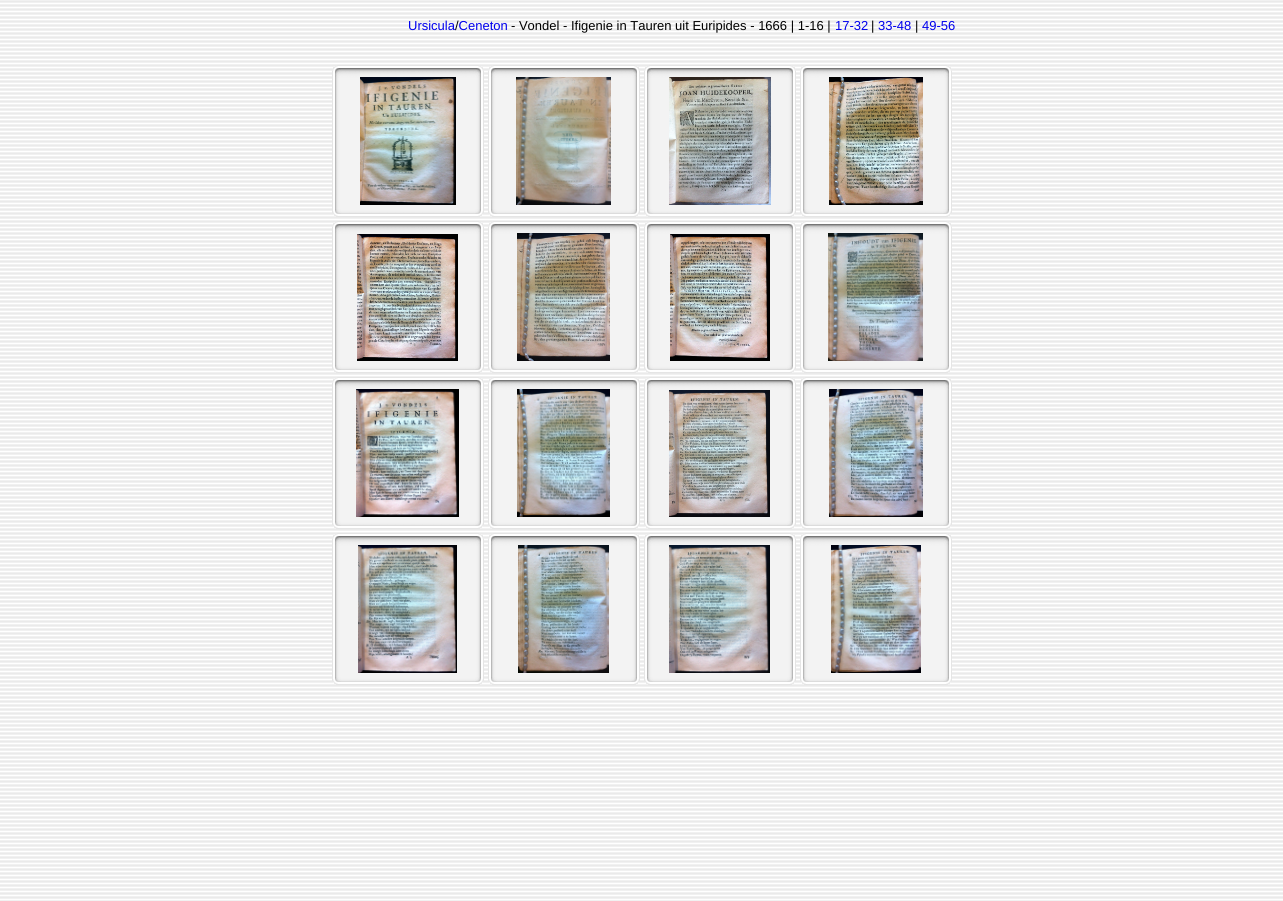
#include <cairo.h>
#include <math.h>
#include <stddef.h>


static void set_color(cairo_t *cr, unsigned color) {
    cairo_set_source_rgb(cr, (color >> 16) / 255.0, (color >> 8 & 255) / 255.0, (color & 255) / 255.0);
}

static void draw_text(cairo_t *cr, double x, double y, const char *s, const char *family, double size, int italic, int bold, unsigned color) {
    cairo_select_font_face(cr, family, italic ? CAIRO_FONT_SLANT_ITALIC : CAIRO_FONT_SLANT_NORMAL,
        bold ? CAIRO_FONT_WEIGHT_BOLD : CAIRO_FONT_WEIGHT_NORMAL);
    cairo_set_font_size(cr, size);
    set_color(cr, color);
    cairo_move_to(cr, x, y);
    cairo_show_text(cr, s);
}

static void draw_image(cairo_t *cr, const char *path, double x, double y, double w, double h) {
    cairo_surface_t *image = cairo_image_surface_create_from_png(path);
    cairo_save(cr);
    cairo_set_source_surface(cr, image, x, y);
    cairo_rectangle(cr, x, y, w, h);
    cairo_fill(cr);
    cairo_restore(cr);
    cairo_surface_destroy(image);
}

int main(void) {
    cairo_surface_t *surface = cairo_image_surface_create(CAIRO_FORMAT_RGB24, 1283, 901);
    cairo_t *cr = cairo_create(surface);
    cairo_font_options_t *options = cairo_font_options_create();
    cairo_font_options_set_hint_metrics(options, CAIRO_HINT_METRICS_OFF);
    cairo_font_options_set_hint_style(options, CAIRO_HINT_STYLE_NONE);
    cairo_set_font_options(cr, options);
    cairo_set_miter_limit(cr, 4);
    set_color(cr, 0xFFFFFF);
    cairo_paint(cr);
    draw_image(cr, "assets/img1.png", 0, 0, 1283, 901);
    draw_text(cr, 408, 30, "Ursicula Ceneton", "Liberation Sans", 13, 0, 0, 0x0000EE);
    draw_text(cr, 455, 30, "/", "Liberation Sans", 13, 0, 0, 0x000000);
    draw_text(cr, 511, 30, "- Vondel - Ifigenie in Tauren uit Euripides - 1666 | 1-16 |", "Liberation Sans", 13, 0, 0, 0x000000);
    draw_text(cr, 835, 30, "17-32", "Liberation Sans", 13, 0, 0, 0x0000EE);
    draw_text(cr, 871, 30, "|", "Liberation Sans", 13, 0, 0, 0x000000);
    draw_text(cr, 878, 30, "33-48", "Liberation Sans", 13, 0, 0, 0x0000EE);
    draw_text(cr, 915, 30, "|", "Liberation Sans", 13, 0, 0, 0x000000);
    draw_text(cr, 922, 30, "49-56", "Liberation Sans", 13, 0, 0, 0x0000EE);
    draw_image(cr, "assets/img2.png", 332, 65, 152, 152);
    draw_image(cr, "assets/img3.png", 360, 77, 96, 128);
    draw_image(cr, "assets/img2.png", 488, 65, 152, 152);
    draw_image(cr, "assets/img4.png", 516, 77, 95, 128);
    draw_image(cr, "assets/img2.png", 644, 65, 152, 152);
    draw_image(cr, "assets/img5.png", 669, 77, 102, 128);
    draw_image(cr, "assets/img2.png", 800, 65, 152, 152);
    draw_image(cr, "assets/img6.png", 829, 77, 94, 128);
    draw_image(cr, "assets/img7.png", 332, 221, 152, 152);
    draw_image(cr, "assets/img8.png", 357, 234, 101, 127);
    draw_image(cr, "assets/img7.png", 488, 221, 152, 152);
    draw_image(cr, "assets/img9.png", 517, 233, 93, 128);
    draw_image(cr, "assets/img7.png", 644, 221, 152, 152);
    draw_image(cr, "assets/img10.png", 670, 234, 100, 127);
    draw_image(cr, "assets/img7.png", 800, 221, 152, 152);
    draw_image(cr, "assets/img11.png", 828, 233, 95, 128);
    draw_image(cr, "assets/img7.png", 332, 377, 152, 152);
    draw_image(cr, "assets/img12.png", 356, 389, 103, 128);
    draw_image(cr, "assets/img7.png", 488, 377, 152, 152);
    draw_image(cr, "assets/img13.png", 517, 389, 93, 128);
    draw_image(cr, "assets/img7.png", 644, 377, 152, 152);
    draw_image(cr, "assets/img14.png", 669, 390, 101, 127);
    draw_image(cr, "assets/img7.png", 800, 377, 152, 152);
    draw_image(cr, "assets/img15.png", 829, 389, 94, 128);
    draw_image(cr, "assets/img2.png", 332, 533, 152, 152);
    draw_image(cr, "assets/img16.png", 358, 545, 99, 128);
    draw_image(cr, "assets/img2.png", 488, 533, 152, 152);
    draw_image(cr, "assets/img17.png", 518, 545, 91, 128);
    draw_image(cr, "assets/img2.png", 644, 533, 152, 152);
    draw_image(cr, "assets/img18.png", 669, 545, 101, 128);
    draw_image(cr, "assets/img2.png", 800, 533, 152, 152);
    draw_image(cr, "assets/img19.png", 831, 545, 90, 128);
    cairo_surface_write_to_png(surface, "output.png");
    cairo_font_options_destroy(options);
    cairo_destroy(cr);
    cairo_surface_destroy(surface);
    return 0;
}
